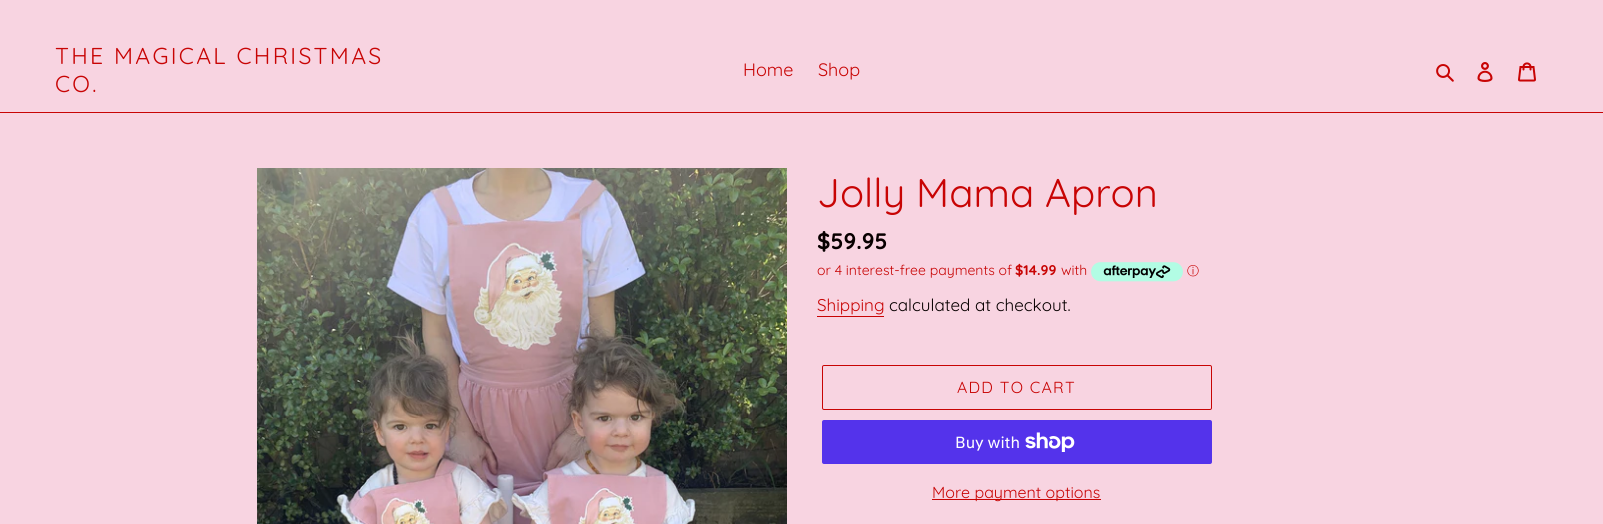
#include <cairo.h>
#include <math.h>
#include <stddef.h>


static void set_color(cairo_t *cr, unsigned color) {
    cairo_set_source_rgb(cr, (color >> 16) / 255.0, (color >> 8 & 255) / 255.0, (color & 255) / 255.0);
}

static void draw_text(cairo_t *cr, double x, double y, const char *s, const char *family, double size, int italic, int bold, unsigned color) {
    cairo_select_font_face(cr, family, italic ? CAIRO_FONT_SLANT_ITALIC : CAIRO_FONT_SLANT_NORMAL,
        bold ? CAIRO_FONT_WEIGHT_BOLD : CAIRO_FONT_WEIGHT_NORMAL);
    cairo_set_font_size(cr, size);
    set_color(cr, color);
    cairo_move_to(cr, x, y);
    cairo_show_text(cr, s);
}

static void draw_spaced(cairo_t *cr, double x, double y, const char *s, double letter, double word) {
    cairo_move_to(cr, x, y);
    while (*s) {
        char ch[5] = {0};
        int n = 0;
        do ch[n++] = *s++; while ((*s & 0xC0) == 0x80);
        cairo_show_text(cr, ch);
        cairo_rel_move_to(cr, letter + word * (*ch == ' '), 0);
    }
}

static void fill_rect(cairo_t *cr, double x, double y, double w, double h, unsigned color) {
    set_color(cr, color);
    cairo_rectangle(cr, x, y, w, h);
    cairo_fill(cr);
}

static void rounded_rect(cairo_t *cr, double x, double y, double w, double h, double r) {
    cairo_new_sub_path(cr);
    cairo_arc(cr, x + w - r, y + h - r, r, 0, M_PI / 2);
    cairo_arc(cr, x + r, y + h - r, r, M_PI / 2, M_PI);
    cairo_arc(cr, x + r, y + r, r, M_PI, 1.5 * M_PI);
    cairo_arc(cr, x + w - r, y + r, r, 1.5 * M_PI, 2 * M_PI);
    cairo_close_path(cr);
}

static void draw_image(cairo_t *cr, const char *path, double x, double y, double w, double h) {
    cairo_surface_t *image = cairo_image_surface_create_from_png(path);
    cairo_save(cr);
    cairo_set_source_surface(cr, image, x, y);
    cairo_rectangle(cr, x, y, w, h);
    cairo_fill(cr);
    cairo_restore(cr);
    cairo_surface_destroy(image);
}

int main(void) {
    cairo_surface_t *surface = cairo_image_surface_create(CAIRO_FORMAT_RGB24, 1603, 524);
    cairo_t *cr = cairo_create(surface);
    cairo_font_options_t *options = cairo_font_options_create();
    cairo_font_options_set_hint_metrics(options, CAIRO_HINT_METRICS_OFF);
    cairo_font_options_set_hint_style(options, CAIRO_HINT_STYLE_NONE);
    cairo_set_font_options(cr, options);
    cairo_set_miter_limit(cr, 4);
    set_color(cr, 0xF8D4E1);
    cairo_paint(cr);
    fill_rect(cr, 0, 112, 1603, 1, 0xC80404);
    cairo_select_font_face(cr, "Quicksand", CAIRO_FONT_SLANT_NORMAL, CAIRO_FONT_WEIGHT_NORMAL);
    cairo_set_font_size(cr, 23);
    draw_spaced(cr, 55, 64, "THE MAGICAL CHRISTMAS", 2.3, 0);
    draw_spaced(cr, 55, 92, "CO.", 2.3, 0);
    draw_text(cr, 743, 76, "Home", "Quicksand", 18, 0, 0, 0xC80404);
    draw_text(cr, 818, 76, "Shop", "Quicksand", 18, 0, 0, 0xC80404);
    draw_image(cr, "assets/img1.png", 1436, 64, 18, 18);
    draw_image(cr, "assets/img2.png", 1477, 62, 16, 20);
    draw_image(cr, "assets/img3.png", 1518, 62, 18, 20);
    draw_image(cr, "assets/img4.png", 257, 168, 530, 356);
    draw_text(cr, 817, 207, "Jolly Mama Apron", "Quicksand", 40, 0, 0, 0xC80404);
    draw_text(cr, 817, 249, "$59.95", "Quicksand", 22.5, 0, 1, 0x080000);
    draw_text(cr, 817, 275, "or 4 interest-free payments of", "Quicksand", 14, 0, 0, 0xC80404);
    draw_text(cr, 1015, 275, "$14.99", "Quicksand", 14, 0, 1, 0xC80404);
    draw_text(cr, 1061, 275, "with", "Quicksand", 14, 0, 0, 0xC80404);
    draw_image(cr, "assets/img5.png", 1091, 262, 92, 20);
    draw_text(cr, 1187, 275, "ⓘ", "WenQuanYi Zen Hei Medium", 12, 0, 0, 0xC80404);
    draw_text(cr, 817, 311, "Shipping", "Quicksand", 17, 0, 0, 0xC80404);
    fill_rect(cr, 817, 316, 67, 1, 0xC80404);
    draw_text(cr, 889, 311, "calculated at checkout.", "Quicksand", 17, 0, 0, 0x080000);
    rounded_rect(cr, 822.5, 365.5, 389, 44, 1.5);
    set_color(cr, 0xC80404);
    cairo_set_line_width(cr, 1);
    cairo_stroke(cr);
    cairo_set_font_size(cr, 16);
    draw_spaced(cr, 957, 393, "ADD TO CART", 1.25, 0);
    set_color(cr, 0x5433EB);
    rounded_rect(cr, 822, 420, 390, 44, 2);
    cairo_fill(cr);
    draw_text(cr, 955, 448, "Buy with", "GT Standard", 16, 0, 0, 0xFFFFFF);
    draw_image(cr, "assets/img6.png", 1025, 432, 50, 20);
    fill_rect(cr, 932, 499, 169, 1, 0xC80404);
    draw_text(cr, 932, 498, "More payment options", "Quicksand", 16, 0, 0, 0xC80404);
    cairo_surface_write_to_png(surface, "output.png");
    cairo_font_options_destroy(options);
    cairo_destroy(cr);
    cairo_surface_destroy(surface);
    return 0;
}
